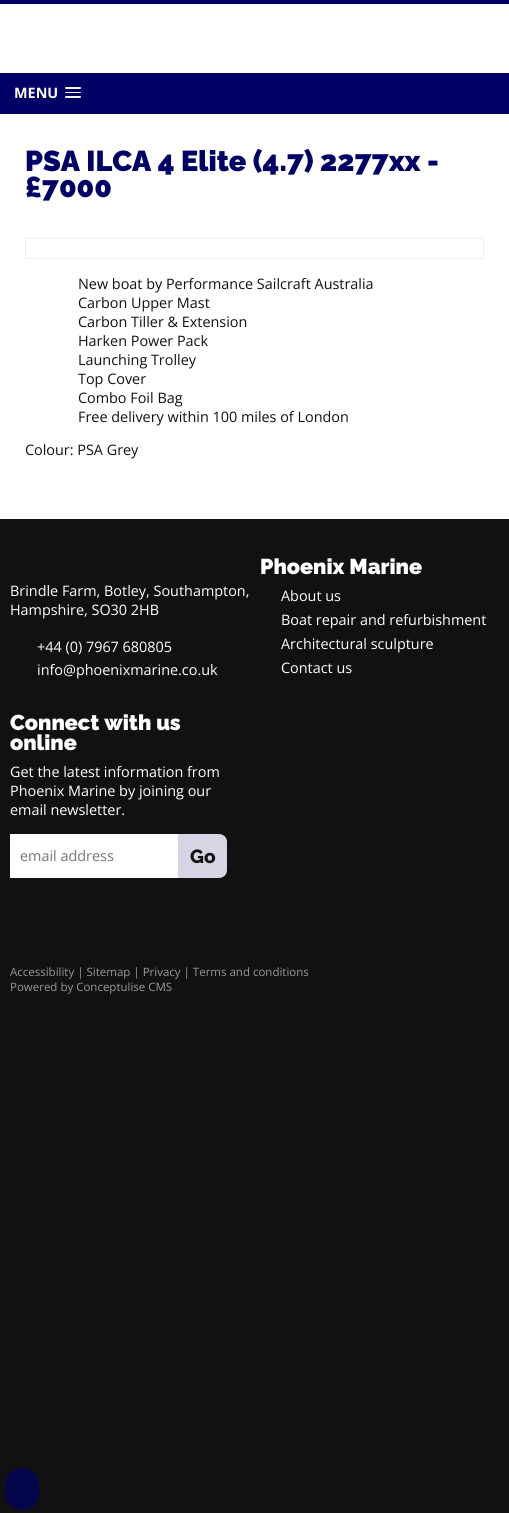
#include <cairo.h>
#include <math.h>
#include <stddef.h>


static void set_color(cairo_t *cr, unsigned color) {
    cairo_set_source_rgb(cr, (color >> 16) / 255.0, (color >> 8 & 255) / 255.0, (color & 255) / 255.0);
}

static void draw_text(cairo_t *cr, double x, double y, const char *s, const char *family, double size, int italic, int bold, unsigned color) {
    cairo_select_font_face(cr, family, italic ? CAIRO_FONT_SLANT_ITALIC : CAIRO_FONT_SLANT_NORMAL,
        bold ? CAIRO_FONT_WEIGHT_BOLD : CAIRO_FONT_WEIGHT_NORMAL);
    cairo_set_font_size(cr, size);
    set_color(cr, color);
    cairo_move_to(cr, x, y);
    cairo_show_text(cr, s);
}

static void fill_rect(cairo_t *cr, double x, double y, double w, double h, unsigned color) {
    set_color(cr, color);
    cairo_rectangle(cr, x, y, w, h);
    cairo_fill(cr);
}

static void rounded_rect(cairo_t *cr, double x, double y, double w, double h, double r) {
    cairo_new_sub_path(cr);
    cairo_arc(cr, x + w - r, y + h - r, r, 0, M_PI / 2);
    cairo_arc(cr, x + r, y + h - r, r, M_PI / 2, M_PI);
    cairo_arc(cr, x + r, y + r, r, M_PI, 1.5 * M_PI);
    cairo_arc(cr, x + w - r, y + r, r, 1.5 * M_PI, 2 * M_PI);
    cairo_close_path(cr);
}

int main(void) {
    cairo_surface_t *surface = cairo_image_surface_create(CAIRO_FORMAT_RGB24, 509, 1513);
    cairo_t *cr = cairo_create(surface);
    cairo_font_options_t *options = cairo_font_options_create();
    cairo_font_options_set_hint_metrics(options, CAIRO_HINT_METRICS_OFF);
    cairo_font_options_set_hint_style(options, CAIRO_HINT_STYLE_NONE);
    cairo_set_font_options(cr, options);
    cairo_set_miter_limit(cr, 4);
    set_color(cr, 0x111111);
    cairo_paint(cr);
    fill_rect(cr, 0, 0, 509, 4, 0x000066);
    fill_rect(cr, 0, 4, 509, 69, 0xFFFFFF);
    fill_rect(cr, 0, 73, 509, 41, 0x000066);
    draw_text(cr, 14, 98, "MENU", "Open Sans", 14.4, 0, 1, 0xFFFFFF);
    set_color(cr, 0x00004D);
    cairo_new_path(cr);
    cairo_move_to(cr, 65, 88.5);
    cairo_curve_to(cr, 64, 90.5, 68, 90, 68.5, 90);
    cairo_line_to(cr, 77.5, 90);
    cairo_curve_to(cr, 78, 90, 82, 90.5, 81, 88.5);
    cairo_curve_to(cr, 80, 89.5, 74.5, 89, 73, 89);
    cairo_curve_to(cr, 71.5, 89, 66, 89.5, 65, 88.5);
    cairo_close_path(cr);
    cairo_fill(cr);
    set_color(cr, 0xF5F5F5);
    rounded_rect(cr, 65, 87, 16, 2, 1);
    cairo_fill(cr);
    set_color(cr, 0x00004D);
    rounded_rect(cr, 65, 93, 16, 1, 0.5);
    cairo_fill(cr);
    set_color(cr, 0xF5F5F5);
    rounded_rect(cr, 65, 92, 16, 1, 0.5);
    cairo_fill(cr);
    set_color(cr, 0x00004D);
    cairo_new_path(cr);
    cairo_move_to(cr, 65, 97.5);
    cairo_curve_to(cr, 64, 99.5, 68, 99, 68.5, 99);
    cairo_line_to(cr, 77.5, 99);
    cairo_curve_to(cr, 78, 99, 82, 99.5, 81, 97.5);
    cairo_curve_to(cr, 80, 98.5, 74.5, 98, 73, 98);
    cairo_curve_to(cr, 71.5, 98, 66, 98.5, 65, 97.5);
    cairo_close_path(cr);
    cairo_fill(cr);
    set_color(cr, 0xF5F5F5);
    rounded_rect(cr, 65, 96, 16, 2, 1);
    cairo_fill(cr);
    fill_rect(cr, 0, 114, 509, 405, 0xFFFFFF);
    draw_text(cr, 25, 171, "PSA ILCA 4 Elite (4.7) 2277xx -", "Raleway Black", 28.75, 0, 0, 0x000066);
    draw_text(cr, 25, 197, "£7000", "Raleway Black", 28.75, 0, 0, 0x000066);
    cairo_rectangle(cr, 25.5, 238.5, 458, 20);
    set_color(cr, 0xEEEEEE);
    cairo_set_line_width(cr, 1);
    cairo_stroke(cr);
    draw_text(cr, 78, 289, "New boat by Performance Sailcraft Australia", "Open Sans", 14.4, 0, 0, 0x111111);
    draw_text(cr, 78, 308, "Carbon Upper Mast", "Open Sans", 14.4, 0, 0, 0x111111);
    draw_text(cr, 78, 327, "Carbon Tiller & Extension", "Open Sans", 14.4, 0, 0, 0x111111);
    draw_text(cr, 78, 346, "Harken Power Pack", "Open Sans", 14.4, 0, 0, 0x111111);
    draw_text(cr, 78, 365, "Launching Trolley", "Open Sans", 14.4, 0, 0, 0x111111);
    draw_text(cr, 78, 384, "Top Cover", "Open Sans", 14.4, 0, 0, 0x111111);
    draw_text(cr, 78, 403, "Combo Foil Bag", "Open Sans", 14.4, 0, 0, 0x111111);
    draw_text(cr, 78, 422, "Free delivery within 100 miles of London", "Open Sans", 14.4, 0, 0, 0x111111);
    draw_text(cr, 25, 455, "Colour: PSA Grey", "Open Sans", 14.4, 0, 0, 0x111111);
    draw_text(cr, 10, 596, "Brindle Farm, Botley, Southampton,", "Open Sans", 14.4, 0, 0, 0xFFFFFF);
    draw_text(cr, 10, 615, "Hampshire, SO30 2HB", "Open Sans", 14.4, 0, 0, 0xFFFFFF);
    draw_text(cr, 37, 652, "+44 (0) 7967 680805", "Open Sans", 14.4, 0, 0, 0xFFFFFF);
    draw_text(cr, 37, 675, "info@phoenixmarine.co.uk", "Open Sans", 14.4, 0, 0, 0xFFFFFF);
    draw_text(cr, 260, 574, "Phoenix Marine", "Raleway Black", 21.5, 0, 0, 0xFFFFFF);
    draw_text(cr, 281, 601, "About us", "Open Sans", 14.4, 0, 0, 0xFFFFFF);
    draw_text(cr, 281, 625, "Boat repair and refurbishment", "Open Sans", 14.4, 0, 0, 0xFFFFFF);
    draw_text(cr, 281, 649, "Architectural sculpture", "Open Sans", 14.4, 0, 0, 0xFFFFFF);
    draw_text(cr, 281, 673, "Contact us", "Open Sans", 14.4, 0, 0, 0xFFFFFF);
    draw_text(cr, 10, 730, "Connect with us", "Raleway Black", 21.5, 0, 0, 0xFFFFFF);
    draw_text(cr, 10, 750, "online", "Raleway Black", 21.5, 0, 0, 0xFFFFFF);
    draw_text(cr, 10, 777, "Get the latest information from", "Open Sans", 14.4, 0, 0, 0xFFFFFF);
    draw_text(cr, 10, 796, "Phoenix Marine by joining our", "Open Sans", 14.4, 0, 0, 0xFFFFFF);
    draw_text(cr, 10, 815, "email newsletter.", "Open Sans", 14.4, 0, 0, 0xFFFFFF);
    fill_rect(cr, 10, 834, 168, 44, 0xFFFFFF);
    draw_text(cr, 20, 861, "email address", "Open Sans", 14.4, 0, 0, 0x757575);
    set_color(cr, 0xD5D5E5);
    cairo_new_path(cr);
    cairo_move_to(cr, 178, 834);
    cairo_line_to(cr, 219, 834);
    cairo_curve_to(cr, 223.5, 834, 227, 837.5, 227, 842);
    cairo_line_to(cr, 227, 870);
    cairo_curve_to(cr, 227, 874.5, 223.5, 878, 219, 878);
    cairo_line_to(cr, 178, 878);
    cairo_close_path(cr);
    cairo_fill(cr);
    draw_text(cr, 190, 863, "Go", "Raleway ExtraBold", 19, 0, 0, 0x111111);
    draw_text(cr, 10, 976, "Accessibility | Sitemap | Privacy | Terms and conditions", "Open Sans", 11.5, 0, 0, 0x999999);
    draw_text(cr, 10, 991, "Powered by Conceptulise CMS", "Open Sans", 11.5, 0, 0, 0x999999);
    set_color(cr, 0x05054D);
    rounded_rect(cr, 5, 1468, 34, 42, 17);
    cairo_fill(cr);
    cairo_surface_write_to_png(surface, "output.png");
    cairo_font_options_destroy(options);
    cairo_destroy(cr);
    cairo_surface_destroy(surface);
    return 0;
}
